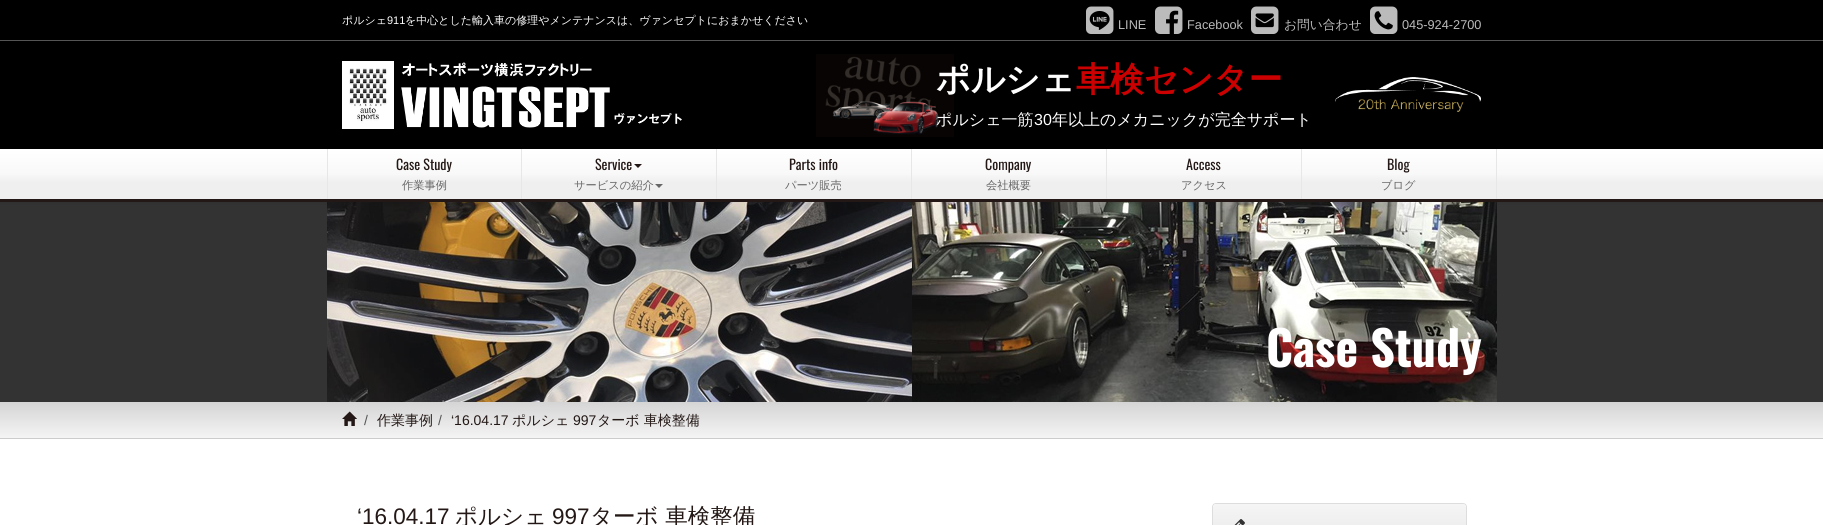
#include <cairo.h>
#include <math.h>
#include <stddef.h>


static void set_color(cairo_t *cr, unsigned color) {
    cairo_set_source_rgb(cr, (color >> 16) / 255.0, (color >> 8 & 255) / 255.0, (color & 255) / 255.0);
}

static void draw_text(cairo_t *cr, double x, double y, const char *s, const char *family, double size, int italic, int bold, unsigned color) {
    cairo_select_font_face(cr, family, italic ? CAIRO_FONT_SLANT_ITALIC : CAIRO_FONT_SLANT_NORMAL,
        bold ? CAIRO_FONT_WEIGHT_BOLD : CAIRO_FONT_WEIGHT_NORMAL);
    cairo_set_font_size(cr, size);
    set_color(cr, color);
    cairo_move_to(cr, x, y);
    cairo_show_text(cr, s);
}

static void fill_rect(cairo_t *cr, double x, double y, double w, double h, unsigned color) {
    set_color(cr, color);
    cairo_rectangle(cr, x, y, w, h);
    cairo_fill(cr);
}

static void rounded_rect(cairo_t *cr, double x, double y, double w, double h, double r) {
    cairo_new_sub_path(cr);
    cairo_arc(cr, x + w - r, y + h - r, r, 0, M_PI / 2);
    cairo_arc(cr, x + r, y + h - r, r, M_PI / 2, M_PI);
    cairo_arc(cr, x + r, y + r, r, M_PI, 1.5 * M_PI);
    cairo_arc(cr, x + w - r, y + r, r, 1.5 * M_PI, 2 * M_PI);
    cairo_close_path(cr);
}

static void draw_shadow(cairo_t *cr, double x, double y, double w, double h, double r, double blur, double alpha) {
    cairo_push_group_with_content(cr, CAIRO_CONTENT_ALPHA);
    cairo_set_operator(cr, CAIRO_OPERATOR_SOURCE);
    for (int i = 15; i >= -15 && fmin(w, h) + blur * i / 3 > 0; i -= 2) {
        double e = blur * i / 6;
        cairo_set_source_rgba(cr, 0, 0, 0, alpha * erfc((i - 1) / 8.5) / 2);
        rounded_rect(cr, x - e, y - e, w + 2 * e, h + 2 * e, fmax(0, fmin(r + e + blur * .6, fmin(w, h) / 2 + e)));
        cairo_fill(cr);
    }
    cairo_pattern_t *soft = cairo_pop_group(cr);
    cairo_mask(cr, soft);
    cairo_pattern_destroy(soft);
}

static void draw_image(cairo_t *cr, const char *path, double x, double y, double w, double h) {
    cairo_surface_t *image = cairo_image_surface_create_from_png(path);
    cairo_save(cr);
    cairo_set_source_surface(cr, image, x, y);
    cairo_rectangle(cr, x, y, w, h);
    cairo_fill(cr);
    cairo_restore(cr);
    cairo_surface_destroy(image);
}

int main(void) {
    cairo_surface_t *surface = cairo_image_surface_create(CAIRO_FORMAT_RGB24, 1823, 525);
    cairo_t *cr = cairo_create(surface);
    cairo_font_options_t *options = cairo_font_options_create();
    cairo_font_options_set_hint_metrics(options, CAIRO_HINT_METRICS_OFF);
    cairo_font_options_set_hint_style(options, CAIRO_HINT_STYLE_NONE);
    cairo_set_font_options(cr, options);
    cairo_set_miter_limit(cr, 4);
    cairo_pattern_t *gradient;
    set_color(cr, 0xFFFFFF);
    cairo_paint(cr);
    fill_rect(cr, 0, 202, 1823, 200, 0x333333);
    set_color(cr, 0x000000);
    draw_shadow(cr, 0, 150, 1823, 53, 0, 2.5, 0.07);
    fill_rect(cr, 0, 0, 1823, 149, 0x000000);
    fill_rect(cr, 0, 40, 1823, 1, 0x555555);
    draw_text(cr, 342, 24, "ポルシェ", "WenQuanYi Zen Hei Medium", 11, 0, 0, 0xFFFFFF);
    draw_text(cr, 387, 24, "911", "Liberation Sans", 11, 0, 0, 0xFFFFFF);
    draw_text(cr, 405, 24, "を中心とした輸入車の修理やメンテナンスは、ヴァンセプトにおまかせください", "WenQuanYi Zen Hei Medium", 11, 0, 0, 0xFFFFFF);
    draw_image(cr, "assets/img1.png", 1086, 6, 28, 28);
    draw_text(cr, 1118, 29, "LINE", "Liberation Sans", 12.75, 0, 0, 0xBBBBBB);
    draw_image(cr, "assets/img2.png", 1155, 6, 28, 28);
    draw_text(cr, 1187, 29, "Facebook", "Liberation Sans", 12.75, 0, 0, 0xBBBBBB);
    draw_image(cr, "assets/img3.png", 1251, 6, 28, 28);
    draw_text(cr, 1284, 29, "お問い合わせ", "WenQuanYi Zen Hei Medium", 12.75, 0, 0, 0xBBBBBB);
    draw_image(cr, "assets/img4.png", 1370, 6, 28, 28);
    draw_text(cr, 1402, 29, "045-924-2700", "Liberation Sans", 12.75, 0, 0, 0xBBBBBB);
    draw_image(cr, "assets/img5.png", 342, 61, 340, 68);
    draw_image(cr, "assets/img6.png", 1335, 77, 146, 35);
    draw_image(cr, "assets/img7.png", 816, 54, 138, 83);
    draw_text(cr, 936, 91, "ポルシェ", "WenQuanYi Zen Hei", 34, 0, 1, 0xFFFFFF);
    draw_text(cr, 1076, 91, "車検センター", "WenQuanYi Zen Hei", 34, 0, 1, 0xCC0000);
    draw_text(cr, 936, 125, "ポルシェ一筋", "WenQuanYi Zen Hei Medium", 16, 0, 0, 0xFFFFFF);
    draw_text(cr, 1034, 125, "30", "Liberation Sans", 16, 0, 0, 0xFFFFFF);
    draw_text(cr, 1052, 125, "年以上のメカニックが完全サポート", "WenQuanYi Zen Hei Medium", 16, 0, 0, 0xFFFFFF);
    gradient = cairo_pattern_create_linear(912, 149, 912, 199);
    cairo_pattern_add_color_stop_rgba(gradient, 0, 1, 1, 1, 1);
    cairo_pattern_add_color_stop_rgba(gradient, 0.5, 0.973, 0.973, 0.973, 1);
    cairo_pattern_add_color_stop_rgba(gradient, 0.66, 0.937, 0.937, 0.937, 1);
    cairo_set_source(cr, gradient);
    cairo_pattern_destroy(gradient);
    cairo_rectangle(cr, 0, 149, 1823, 50);
    cairo_fill(cr);
    fill_rect(cr, 0, 199, 1823, 3, 0x231815);
    fill_rect(cr, 521, 149, 1, 50, 0xE7E7E7);
    fill_rect(cr, 327, 149, 1, 50, 0xE7E7E7);
    draw_text(cr, 396, 170, "Case Study", "Oswald", 14, 0, 0, 0x231815);
    draw_text(cr, 402, 189, "作業事例", "WenQuanYi Zen Hei Medium", 11.25, 0, 0, 0x666666);
    fill_rect(cr, 716, 149, 1, 50, 0xE7E7E7);
    draw_text(cr, 595, 170, "Service", "Oswald", 14, 0, 0, 0x231815);
    cairo_new_path(cr);
    cairo_move_to(cr, 634, 164);
    cairo_line_to(cr, 642, 164);
    cairo_line_to(cr, 638, 168);
    cairo_close_path(cr);
    cairo_fill(cr);
    draw_text(cr, 574, 189, "サービスの紹介", "WenQuanYi Zen Hei Medium", 11.25, 0, 0, 0x666666);
    cairo_new_path(cr);
    cairo_move_to(cr, 655, 184);
    cairo_line_to(cr, 663, 184);
    cairo_line_to(cr, 659, 188);
    cairo_close_path(cr);
    cairo_fill(cr);
    fill_rect(cr, 911, 149, 1, 50, 0xE7E7E7);
    draw_text(cr, 789, 170, "Parts info", "Oswald", 14, 0, 0, 0x231815);
    draw_text(cr, 785, 189, "パーツ販売", "WenQuanYi Zen Hei Medium", 11.25, 0, 0, 0x666666);
    fill_rect(cr, 1106, 149, 1, 50, 0xE7E7E7);
    draw_text(cr, 985, 170, "Company", "Oswald", 14, 0, 0, 0x231815);
    draw_text(cr, 986, 189, "会社概要", "WenQuanYi Zen Hei Medium", 11.25, 0, 0, 0x666666);
    fill_rect(cr, 1301, 149, 1, 50, 0xE7E7E7);
    draw_text(cr, 1186, 170, "Access", "Oswald", 14, 0, 0, 0x231815);
    draw_text(cr, 1181, 189, "アクセス", "WenQuanYi Zen Hei Medium", 11.25, 0, 0, 0x666666);
    fill_rect(cr, 1496, 149, 1, 50, 0xE7E7E7);
    draw_text(cr, 1387, 170, "Blog", "Oswald", 14, 0, 0, 0x231815);
    draw_text(cr, 1381, 189, "ブログ", "WenQuanYi Zen Hei Medium", 11.25, 0, 0, 0x666666);
    draw_image(cr, "assets/img8.png", 327, 202, 1170, 200);
    draw_text(cr, 1266, 367, "Case Study", "Oswald", 48, 0, 1, 0xFFFFFF);
    gradient = cairo_pattern_create_linear(912, 402, 912, 438);
    cairo_pattern_add_color_stop_rgba(gradient, 0, 0.835, 0.835, 0.835, 1);
    cairo_pattern_add_color_stop_rgba(gradient, 1, 0.957, 0.957, 0.957, 1);
    cairo_set_source(cr, gradient);
    cairo_pattern_destroy(gradient);
    cairo_rectangle(cr, 0, 402, 1823, 36);
    cairo_fill(cr);
    fill_rect(cr, 0, 438, 1823, 1, 0xCCCCCC);
    draw_image(cr, "assets/img9.png", 342, 411, 15, 15);
    draw_text(cr, 364, 425, "/", "Liberation Sans", 14, 0, 0, 0x555555);
    draw_text(cr, 377, 425, "作業事例", "WenQuanYi Zen Hei Medium", 14, 0, 0, 0x231815);
    draw_text(cr, 438, 425, "/", "Liberation Sans", 14, 0, 0, 0x555555);
    draw_text(cr, 451, 425, "‘16.04.17", "Liberation Sans", 14, 0, 0, 0x231815);
    draw_text(cr, 512, 425, "ポルシェ", "WenQuanYi Zen Hei Medium", 14, 0, 0, 0x231815);
    draw_text(cr, 573, 425, "997", "Liberation Sans", 14, 0, 0, 0x231815);
    draw_text(cr, 597, 425, "ターボ 車検整備", "WenQuanYi Zen Hei Medium", 14, 0, 0, 0x231815);
    draw_text(cr, 357, 524, "‘16.04.17", "Liberation Sans", 22.5, 0, 0, 0x231815);
    draw_text(cr, 455, 524, "ポルシェ", "WenQuanYi Zen Hei Medium", 22.5, 0, 0, 0x231815);
    draw_text(cr, 552, 524, "997", "Liberation Sans", 22.5, 0, 0, 0x231815);
    draw_text(cr, 590, 524, "ターボ 車検整備", "WenQuanYi Zen Hei Medium", 22.5, 0, 0, 0x231815);
    rounded_rect(cr, 1212.5, 503.5, 254, 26, 3.5);
    set_color(cr, 0xDDDDDD);
    cairo_set_line_width(cr, 1);
    cairo_stroke(cr);
    gradient = cairo_pattern_create_linear(1340, 504, 1340, 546);
    cairo_pattern_add_color_stop_rgba(gradient, 0, 0.961, 0.961, 0.961, 1);
    cairo_pattern_add_color_stop_rgba(gradient, 1, 0.91, 0.91, 0.91, 1);
    cairo_set_source(cr, gradient);
    cairo_pattern_destroy(gradient);
    cairo_new_path(cr);
    cairo_move_to(cr, 1216, 504);
    cairo_line_to(cr, 1463, 504);
    cairo_curve_to(cr, 1464.5, 504, 1466, 505.5, 1466, 507);
    cairo_line_to(cr, 1466, 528);
    cairo_line_to(cr, 1213, 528);
    cairo_line_to(cr, 1213, 507);
    cairo_curve_to(cr, 1213, 505.5, 1214.5, 504, 1216, 504);
    cairo_close_path(cr);
    cairo_fill(cr);
    draw_image(cr, "assets/img10.png", 1234, 519, 11, 6);
    cairo_surface_write_to_png(surface, "output.png");
    cairo_font_options_destroy(options);
    cairo_destroy(cr);
    cairo_surface_destroy(surface);
    return 0;
}
